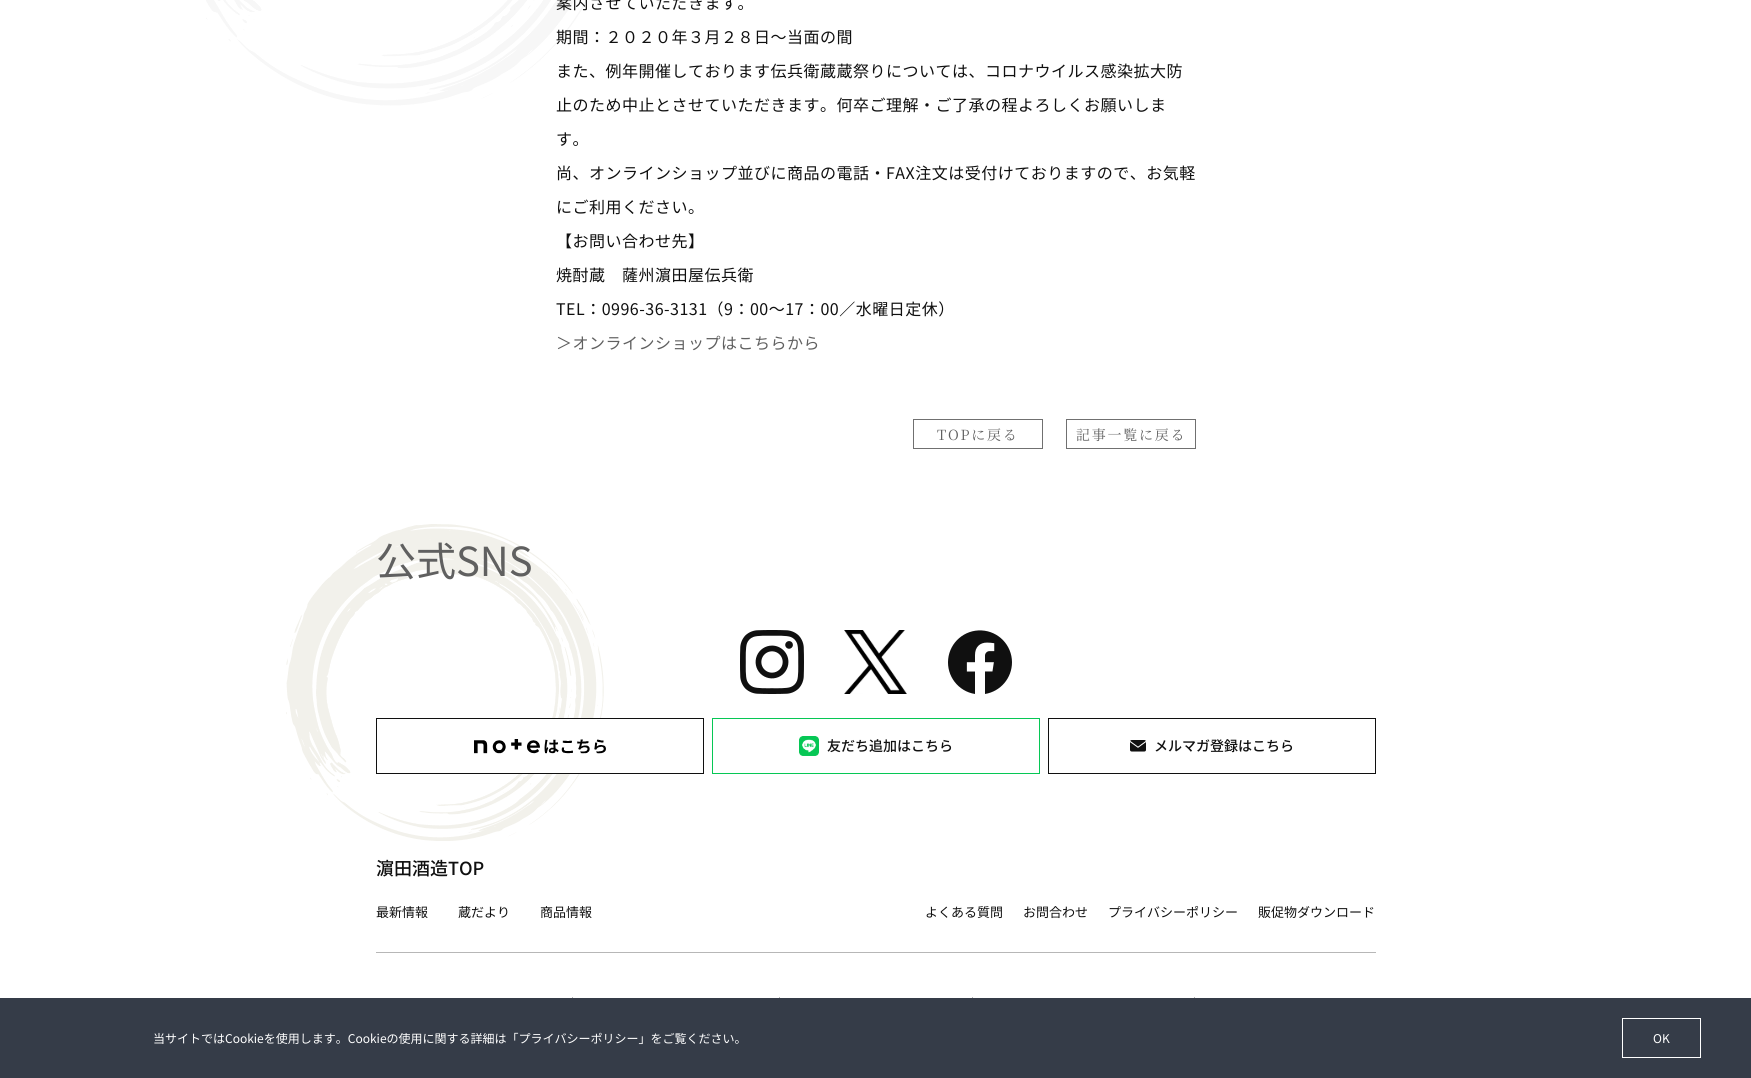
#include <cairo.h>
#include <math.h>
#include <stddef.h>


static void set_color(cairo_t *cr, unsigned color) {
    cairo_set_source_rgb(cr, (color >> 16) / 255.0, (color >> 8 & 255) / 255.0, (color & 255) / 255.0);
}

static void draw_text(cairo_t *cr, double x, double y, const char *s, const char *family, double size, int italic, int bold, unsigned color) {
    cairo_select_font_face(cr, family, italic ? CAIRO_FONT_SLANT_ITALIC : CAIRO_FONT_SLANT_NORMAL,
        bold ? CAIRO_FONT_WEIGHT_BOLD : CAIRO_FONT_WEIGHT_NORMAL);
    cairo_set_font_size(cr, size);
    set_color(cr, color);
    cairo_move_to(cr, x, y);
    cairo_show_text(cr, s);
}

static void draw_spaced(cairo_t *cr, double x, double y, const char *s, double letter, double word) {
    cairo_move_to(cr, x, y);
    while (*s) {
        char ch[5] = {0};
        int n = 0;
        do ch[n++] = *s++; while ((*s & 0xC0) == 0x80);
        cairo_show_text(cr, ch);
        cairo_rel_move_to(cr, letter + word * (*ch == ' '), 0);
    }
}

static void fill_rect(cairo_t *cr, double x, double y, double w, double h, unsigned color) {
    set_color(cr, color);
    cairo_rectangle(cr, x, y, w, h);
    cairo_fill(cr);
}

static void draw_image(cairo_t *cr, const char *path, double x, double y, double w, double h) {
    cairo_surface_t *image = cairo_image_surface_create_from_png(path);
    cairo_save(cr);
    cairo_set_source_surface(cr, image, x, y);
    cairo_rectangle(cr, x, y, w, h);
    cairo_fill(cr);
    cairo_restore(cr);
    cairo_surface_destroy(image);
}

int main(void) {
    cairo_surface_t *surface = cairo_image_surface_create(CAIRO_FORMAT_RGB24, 1751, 1078);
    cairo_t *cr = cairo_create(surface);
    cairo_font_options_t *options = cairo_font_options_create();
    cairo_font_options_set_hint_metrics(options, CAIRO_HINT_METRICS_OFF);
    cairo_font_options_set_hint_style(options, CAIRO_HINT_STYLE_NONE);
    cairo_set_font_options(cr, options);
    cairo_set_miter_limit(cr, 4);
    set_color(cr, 0xFFFFFF);
    cairo_paint(cr);
    draw_image(cr, "assets/img1.png", 206, 0, 381, 106);
    cairo_select_font_face(cr, "Noto Sans JP", CAIRO_FONT_SLANT_NORMAL, CAIRO_FONT_WEIGHT_NORMAL);
    cairo_set_font_size(cr, 16);
    set_color(cr, 0x101010);
    draw_spaced(cr, 556, 9, "案内させていただきます。", 0.5, 0);
    draw_spaced(cr, 556, 43, "期間：２０２０年３月２８日～当面の間", 0.5, 0);
    draw_spaced(cr, 556, 77, "また、例年開催しております伝兵衛蔵蔵祭りについては、コロナウイルス感染拡大防", 0.5, 0);
    draw_spaced(cr, 556, 111, "止のため中止とさせていただきます。何卒ご理解・ご了承の程よろしくお願いしま", 0.5, 0);
    draw_spaced(cr, 556, 145, "す。", 0.5, 0);
    draw_spaced(cr, 556, 179, "尚、オンラインショップ並びに商品の電話・FAX注文は受付けておりますので、お気軽", 0.5, 0);
    draw_spaced(cr, 556, 213, "にご利用ください。", 0.5, 0);
    draw_spaced(cr, 556, 247, "【お問い合わせ先】", 0.5, 0);
    draw_spaced(cr, 556, 281, "焼酎蔵　薩州濵田屋伝兵衛", 0.5, 0);
    draw_spaced(cr, 556, 315, "TEL：0996-36-3131（9：00～17：00／水曜日定休）", 0.5, 0);
    set_color(cr, 0x606060);
    draw_spaced(cr, 556, 349, "＞オンラインショップはこちらから", 0.5, 0);
    cairo_rectangle(cr, 913.5, 419.5, 129, 29);
    set_color(cr, 0x707070);
    cairo_set_line_width(cr, 1);
    cairo_stroke(cr);
    cairo_select_font_face(cr, "Noto Serif JP", CAIRO_FONT_SLANT_NORMAL, CAIRO_FONT_WEIGHT_NORMAL);
    cairo_set_font_size(cr, 14);
    set_color(cr, 0x606060);
    draw_spaced(cr, 937, 440, "TOPに戻る", 1.75, 0);
    cairo_rectangle(cr, 1066.5, 419.5, 129, 29);
    set_color(cr, 0x707070);
    cairo_stroke(cr);
    set_color(cr, 0x606060);
    draw_spaced(cr, 1076, 440, "記事一覧に戻る", 1.75, 0);
    draw_image(cr, "assets/img2.png", 286, 524, 318, 317);
    draw_text(cr, 376, 576, "公式SNS", "Noto Sans JP", 40, 0, 0, 0x606060);
    draw_image(cr, "assets/img3.png", 740, 630, 64, 64);
    draw_image(cr, "assets/img4.png", 844, 630, 63, 64);
    draw_image(cr, "assets/img5.png", 948, 630, 64, 64);
    fill_rect(cr, 520, 719, 81, 54, 0xFFFFFF);
    cairo_rectangle(cr, 376.5, 718.5, 327, 55);
    set_color(cr, 0x101010);
    cairo_stroke(cr);
    draw_image(cr, "assets/img6.png", 474, 739, 132, 15);
    cairo_rectangle(cr, 712.5, 718.5, 327, 55);
    set_color(cr, 0x06C755);
    cairo_stroke(cr);
    draw_image(cr, "assets/img7.png", 799, 736, 20, 20);
    draw_text(cr, 827, 751, "友だち追加はこちら", "Noto Sans JP Medium", 14, 0, 0, 0x101010);
    cairo_rectangle(cr, 1048.5, 718.5, 327, 55);
    cairo_stroke(cr);
    draw_image(cr, "assets/img8.png", 1130, 740, 16, 12);
    draw_text(cr, 1154, 751, "メルマガ登録はこちら", "Noto Sans JP Medium", 14, 0, 0, 0x101010);
    draw_text(cr, 376, 875, "濵田酒造TOP", "Noto Sans JP Medium", 18, 0, 0, 0x101010);
    draw_text(cr, 376, 917, "最新情報", "Noto Sans JP", 13, 0, 0, 0x101010);
    draw_text(cr, 458, 917, "蔵だより", "Noto Sans JP", 13, 0, 0, 0x101010);
    draw_text(cr, 540, 917, "商品情報", "Noto Sans JP", 13, 0, 0, 0x101010);
    draw_text(cr, 925, 917, "よくある質問", "Noto Sans JP", 13, 0, 0, 0x101010);
    draw_text(cr, 1023, 917, "お問合わせ", "Noto Sans JP", 13, 0, 0, 0x101010);
    draw_text(cr, 1108, 917, "プライバシーポリシー", "Noto Sans JP", 13, 0, 0, 0x101010);
    draw_text(cr, 1258, 917, "販促物ダウンロード", "Noto Sans JP", 13, 0, 0, 0x101010);
    fill_rect(cr, 376, 952, 1000, 1, 0xB7B7B7);
    fill_rect(cr, 572, 997, 1, 1, 0xB7B7B7);
    fill_rect(cr, 779, 997, 1, 1, 0xB7B7B7);
    fill_rect(cr, 972, 997, 1, 1, 0xB7B7B7);
    fill_rect(cr, 1194, 997, 1, 1, 0xB7B7B7);
    fill_rect(cr, 0, 998, 1751, 80, 0x353C48);
    draw_text(cr, 153, 1043, "当サイトではCookieを使用します。Cookieの使用に関する詳細は「プライバシーポリシー」をご覧ください。", "Noto Sans JP", 12, 0, 0, 0xFFFFFF);
    cairo_rectangle(cr, 1622.5, 1018.5, 78, 39);
    cairo_stroke(cr);
    draw_text(cr, 1653, 1043, "OK", "Noto Sans JP", 12, 0, 0, 0xFFFFFF);
    cairo_surface_write_to_png(surface, "output.png");
    cairo_font_options_destroy(options);
    cairo_destroy(cr);
    cairo_surface_destroy(surface);
    return 0;
}
